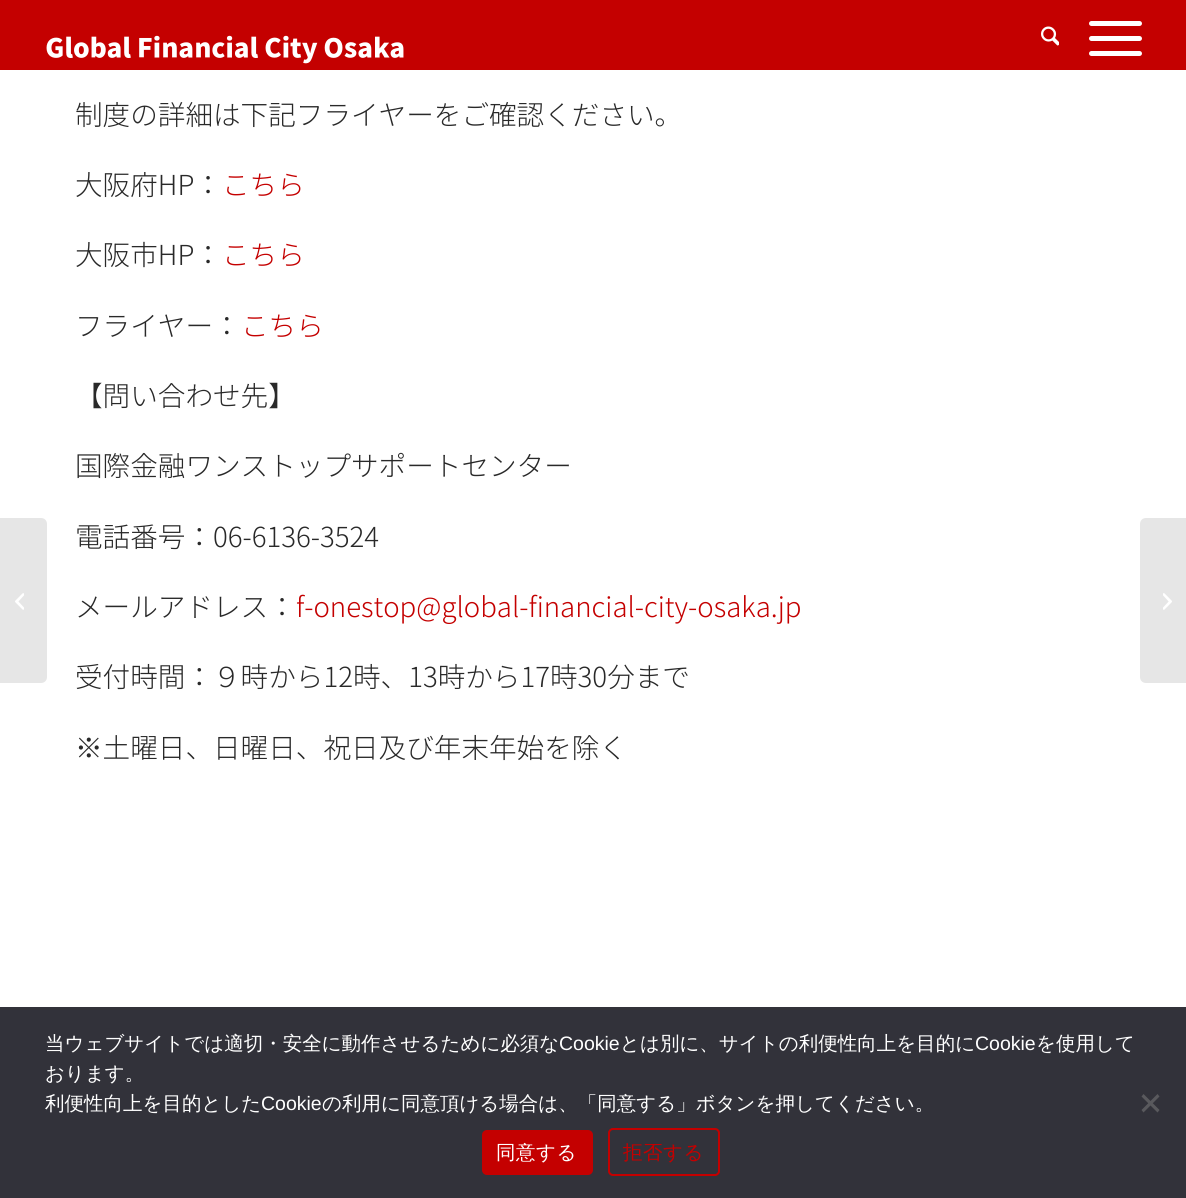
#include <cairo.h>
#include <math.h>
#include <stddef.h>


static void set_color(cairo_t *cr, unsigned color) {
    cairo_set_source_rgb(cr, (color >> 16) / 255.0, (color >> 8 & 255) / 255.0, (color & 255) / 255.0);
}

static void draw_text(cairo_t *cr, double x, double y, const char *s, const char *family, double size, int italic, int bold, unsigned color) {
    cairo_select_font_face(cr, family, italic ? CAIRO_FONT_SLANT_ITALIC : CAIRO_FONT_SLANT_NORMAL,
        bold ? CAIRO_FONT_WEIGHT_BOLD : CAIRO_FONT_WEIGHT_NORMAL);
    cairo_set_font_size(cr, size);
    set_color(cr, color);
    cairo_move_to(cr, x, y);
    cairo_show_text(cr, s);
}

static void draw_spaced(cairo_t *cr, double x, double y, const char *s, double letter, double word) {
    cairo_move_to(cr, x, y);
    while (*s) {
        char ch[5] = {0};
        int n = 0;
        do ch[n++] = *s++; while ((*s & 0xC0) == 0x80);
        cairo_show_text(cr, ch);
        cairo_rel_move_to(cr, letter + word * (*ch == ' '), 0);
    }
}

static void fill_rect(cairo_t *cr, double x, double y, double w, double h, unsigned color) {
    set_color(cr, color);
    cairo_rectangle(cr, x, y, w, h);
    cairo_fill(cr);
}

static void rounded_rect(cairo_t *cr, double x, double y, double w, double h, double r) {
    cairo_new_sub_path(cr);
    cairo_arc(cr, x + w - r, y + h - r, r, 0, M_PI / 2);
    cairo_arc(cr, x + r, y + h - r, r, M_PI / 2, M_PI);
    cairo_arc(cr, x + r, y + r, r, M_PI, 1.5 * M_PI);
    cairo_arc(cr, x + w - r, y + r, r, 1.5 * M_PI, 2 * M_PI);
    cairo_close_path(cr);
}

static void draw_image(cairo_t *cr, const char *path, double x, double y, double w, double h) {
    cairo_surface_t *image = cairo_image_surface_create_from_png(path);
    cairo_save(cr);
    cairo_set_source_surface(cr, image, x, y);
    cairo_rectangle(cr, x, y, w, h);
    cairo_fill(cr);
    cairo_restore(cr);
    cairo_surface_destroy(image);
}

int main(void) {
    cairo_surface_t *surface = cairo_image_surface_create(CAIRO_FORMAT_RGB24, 1186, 1198);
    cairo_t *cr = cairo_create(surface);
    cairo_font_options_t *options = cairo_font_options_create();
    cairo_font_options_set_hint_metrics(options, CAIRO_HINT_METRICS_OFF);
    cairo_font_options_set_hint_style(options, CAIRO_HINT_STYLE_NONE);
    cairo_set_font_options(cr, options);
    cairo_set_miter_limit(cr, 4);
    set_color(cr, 0xFFFFFF);
    cairo_paint(cr);
    fill_rect(cr, 0, 0, 1186, 70, 0xC40000);
    draw_image(cr, "assets/img1.png", 46, 35, 358, 29);
    draw_image(cr, "assets/img2.png", 1041, 26, 18, 20);
    set_color(cr, 0xFFFFFF);
    rounded_rect(cr, 1089, 36, 53, 5, 2.5);
    cairo_fill(cr);
    rounded_rect(cr, 1089, 21, 53, 5, 2.5);
    cairo_fill(cr);
    rounded_rect(cr, 1089, 51, 53, 5, 2.5);
    cairo_fill(cr);
    set_color(cr, 0xE6E6E6);
    cairo_new_path(cr);
    cairo_move_to(cr, 0, 518);
    cairo_line_to(cr, 41, 518);
    cairo_curve_to(cr, 44.5, 518, 47, 520.5, 47, 524);
    cairo_line_to(cr, 47, 677);
    cairo_curve_to(cr, 47, 680.5, 44.5, 683, 41, 683);
    cairo_line_to(cr, 0, 683);
    cairo_close_path(cr);
    cairo_fill(cr);
    draw_image(cr, "assets/img3.png", 15, 593, 9, 17);
    draw_text(cr, 75, 125, "制度の詳細は下記フライヤーをご確認ください。", "Noto Sans JP Light", 27.6, 0, 0, 0x292929);
    draw_text(cr, 75, 195, "大阪府HP：", "Noto Sans JP Light", 27.6, 0, 0, 0x292929);
    draw_text(cr, 222, 195, "こちら", "Noto Sans JP Light", 27.6, 0, 0, 0xC40000);
    draw_text(cr, 75, 265, "大阪市HP：", "Noto Sans JP Light", 27.6, 0, 0, 0x292929);
    draw_text(cr, 222, 265, "こちら", "Noto Sans JP Light", 27.6, 0, 0, 0xC40000);
    draw_text(cr, 75, 336, "フライヤー：", "Noto Sans JP Light", 27.6, 0, 0, 0x292929);
    draw_text(cr, 241, 336, "こちら", "Noto Sans JP Light", 27.6, 0, 0, 0xC40000);
    draw_text(cr, 75, 406, "【問い合わせ先】", "Noto Sans JP Light", 27.6, 0, 0, 0x292929);
    draw_text(cr, 75, 476, "国際金融ワンストップサポートセンター", "Noto Sans JP Light", 27.6, 0, 0, 0x292929);
    draw_text(cr, 75, 547, "電話番号：06-6136-3524", "Noto Sans JP Light", 27.6, 0, 0, 0x292929);
    draw_text(cr, 75, 617, "メールアドレス：", "Noto Sans JP Light", 27.6, 0, 0, 0x292929);
    draw_text(cr, 296, 617, "f-onestop@global-financial-city-osaka.jp", "Noto Sans JP Light", 27.6, 0, 0, 0xC40000);
    draw_text(cr, 75, 687, "受付時間：９時から12時、13時から17時30分まで", "Noto Sans JP Light", 27.6, 0, 0, 0x292929);
    draw_text(cr, 75, 758, "※土曜日、日曜日、祝日及び年末年始を除く", "Noto Sans JP Light", 27.6, 0, 0, 0x292929);
    set_color(cr, 0xE6E6E6);
    cairo_new_path(cr);
    cairo_move_to(cr, 1146, 518);
    cairo_line_to(cr, 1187, 518);
    cairo_line_to(cr, 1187, 683);
    cairo_line_to(cr, 1146, 683);
    cairo_curve_to(cr, 1142.5, 683, 1140, 680.5, 1140, 677);
    cairo_line_to(cr, 1140, 524);
    cairo_curve_to(cr, 1140, 520.5, 1142.5, 518, 1146, 518);
    cairo_close_path(cr);
    cairo_fill(cr);
    draw_image(cr, "assets/img4.png", 1163, 593, 9, 17);
    fill_rect(cr, 0, 1007, 1186, 191, 0x32323A);
    draw_text(cr, 45, 1050, "当ウェブサイトでは適切・安全に動作させるために必須な", "WenQuanYi Zen Hei Medium", 19.5, 0, 0, 0xFFFFFF);
    draw_text(cr, 559, 1050, "Cookie", "Liberation Sans", 19.5, 0, 0, 0xFFFFFF);
    draw_text(cr, 620, 1050, "とは別に、サイトの利便性向上を目的に", "WenQuanYi Zen Hei Medium", 19.5, 0, 0, 0xFFFFFF);
    draw_text(cr, 975, 1050, "Cookie", "Liberation Sans", 19.5, 0, 0, 0xFFFFFF);
    draw_text(cr, 1036, 1050, "を使用して", "WenQuanYi Zen Hei Medium", 19.5, 0, 0, 0xFFFFFF);
    draw_text(cr, 45, 1080, "おります。", "WenQuanYi Zen Hei Medium", 19.5, 0, 0, 0xFFFFFF);
    draw_text(cr, 45, 1110, "利便性向上を目的とした", "WenQuanYi Zen Hei Medium", 19.5, 0, 0, 0xFFFFFF);
    draw_text(cr, 261, 1110, "Cookie", "Liberation Sans", 19.5, 0, 0, 0xFFFFFF);
    draw_text(cr, 322, 1110, "の利用に同意頂ける場合は、「同意する」ボタンを押してください。", "WenQuanYi Zen Hei Medium", 19.5, 0, 0, 0xFFFFFF);
    set_color(cr, 0x59595D);
    cairo_new_path(cr);
    cairo_move_to(cr, 1157.5, 1094);
    cairo_line_to(cr, 1159.5, 1096.5);
    cairo_line_to(cr, 1143.5, 1112.5);
    cairo_line_to(cr, 1141.5, 1110);
    cairo_close_path(cr);
    cairo_fill(cr);
    cairo_new_path(cr);
    cairo_move_to(cr, 1141.5, 1096.5);
    cairo_line_to(cr, 1143.5, 1094);
    cairo_line_to(cr, 1159.5, 1110);
    cairo_line_to(cr, 1157.5, 1112.5);
    cairo_close_path(cr);
    cairo_fill(cr);
    set_color(cr, 0xC40000);
    rounded_rect(cr, 482, 1130, 111, 45, 5);
    cairo_fill(cr);
    set_color(cr, 0xFFFFFF);
    draw_spaced(cr, 496, 1159, "同意する", 0.5, 0);
    rounded_rect(cr, 609, 1129, 110, 46, 4);
    set_color(cr, 0xC40000);
    cairo_stroke(cr);
    draw_spaced(cr, 623, 1159, "拒否する", 0.5, 0);
    cairo_surface_write_to_png(surface, "output.png");
    cairo_font_options_destroy(options);
    cairo_destroy(cr);
    cairo_surface_destroy(surface);
    return 0;
}
